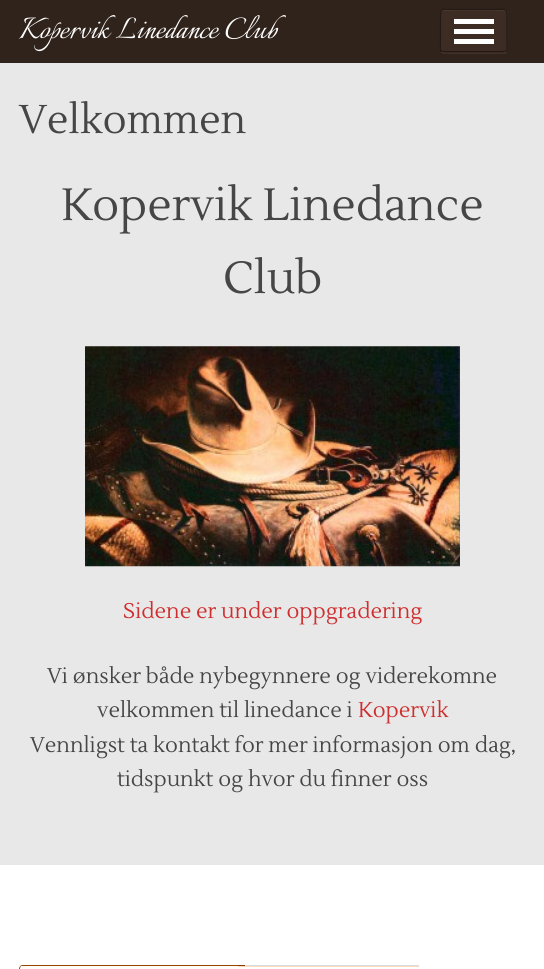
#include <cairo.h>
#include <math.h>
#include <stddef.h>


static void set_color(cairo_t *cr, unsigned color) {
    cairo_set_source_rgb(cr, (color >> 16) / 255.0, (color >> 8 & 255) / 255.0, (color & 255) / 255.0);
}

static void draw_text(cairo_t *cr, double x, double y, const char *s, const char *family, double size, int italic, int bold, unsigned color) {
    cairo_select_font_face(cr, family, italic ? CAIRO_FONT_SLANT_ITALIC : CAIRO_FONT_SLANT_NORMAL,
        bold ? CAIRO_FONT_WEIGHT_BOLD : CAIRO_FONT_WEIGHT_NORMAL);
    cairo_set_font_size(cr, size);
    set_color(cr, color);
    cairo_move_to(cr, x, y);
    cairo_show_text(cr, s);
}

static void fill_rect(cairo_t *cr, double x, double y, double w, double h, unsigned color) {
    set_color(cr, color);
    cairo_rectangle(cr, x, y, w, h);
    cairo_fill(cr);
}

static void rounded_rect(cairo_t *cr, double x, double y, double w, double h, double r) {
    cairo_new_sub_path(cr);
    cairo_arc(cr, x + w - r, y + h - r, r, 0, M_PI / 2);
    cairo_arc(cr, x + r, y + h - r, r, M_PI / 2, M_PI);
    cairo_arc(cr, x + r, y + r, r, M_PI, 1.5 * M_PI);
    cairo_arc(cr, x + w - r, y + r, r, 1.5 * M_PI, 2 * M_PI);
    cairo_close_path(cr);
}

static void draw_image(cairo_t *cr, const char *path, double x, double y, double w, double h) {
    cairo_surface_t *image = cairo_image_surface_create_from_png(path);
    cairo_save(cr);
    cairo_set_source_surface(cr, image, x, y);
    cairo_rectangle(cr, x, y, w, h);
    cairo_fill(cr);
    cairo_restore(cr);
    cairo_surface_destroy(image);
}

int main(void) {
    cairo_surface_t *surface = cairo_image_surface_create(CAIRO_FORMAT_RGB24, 544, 969);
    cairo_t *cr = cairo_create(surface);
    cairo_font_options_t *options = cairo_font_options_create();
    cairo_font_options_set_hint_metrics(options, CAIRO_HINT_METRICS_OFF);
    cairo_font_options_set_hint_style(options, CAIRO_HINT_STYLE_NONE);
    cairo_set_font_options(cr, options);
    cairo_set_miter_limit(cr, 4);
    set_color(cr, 0x30231C);
    cairo_paint(cr);
    draw_text(cr, 19, 38, "Kopervik Linedance Club", "Italianno", 37.5, 0, 0, 0xFFFFFF);
    set_color(cr, 0x3D2C24);
    rounded_rect(cr, 440, 9, 68, 45, 4);
    cairo_fill(cr);
    set_color(cr, 0x231A15);
    cairo_new_path(cr);
    cairo_move_to(cr, 441, 49);
    cairo_curve_to(cr, 441, 56, 448, 53, 454, 53);
    cairo_line_to(cr, 494, 53);
    cairo_curve_to(cr, 499, 53, 506, 56, 506, 49);
    cairo_curve_to(cr, 506, 50, 505, 51, 504, 51);
    cairo_line_to(cr, 444, 51);
    cairo_curve_to(cr, 442, 51, 441, 50, 441, 49);
    cairo_close_path(cr);
    cairo_fill(cr);
    set_color(cr, 0x4A372C);
    cairo_new_path(cr);
    cairo_move_to(cr, 444, 11);
    cairo_line_to(cr, 504, 11);
    cairo_curve_to(cr, 505, 11, 506, 12, 506, 14);
    cairo_curve_to(cr, 506, 7, 499, 10, 494, 10);
    cairo_line_to(cr, 454, 10);
    cairo_curve_to(cr, 448, 10, 441, 7, 441, 14);
    cairo_curve_to(cr, 441, 12, 442, 11, 444, 11);
    cairo_close_path(cr);
    cairo_fill(cr);
    cairo_new_path(cr);
    cairo_move_to(cr, 506, 52);
    cairo_line_to(cr, 504, 53);
    cairo_line_to(cr, 443.5, 53);
    cairo_line_to(cr, 441.5, 52);
    cairo_set_line_width(cr, 1.2);
    cairo_stroke(cr);
    cairo_new_path(cr);
    cairo_move_to(cr, 441.5, 52);
    cairo_curve_to(cr, 439.5, 50.5, 440.5, 45, 440.5, 44);
    cairo_line_to(cr, 440.5, 19);
    cairo_curve_to(cr, 440.5, 7, 441, 9.5, 454, 9.5);
    cairo_line_to(cr, 494, 9.5);
    cairo_curve_to(cr, 506.5, 9.5, 507, 7, 507, 19);
    cairo_line_to(cr, 507, 44);
    cairo_curve_to(cr, 507, 45, 508, 50.5, 506, 52);
    set_color(cr, 0x231A15);
    cairo_stroke(cr);
    fill_rect(cr, 454, 19, 40, 5, 0xFFFFFF);
    fill_rect(cr, 454, 29, 40, 5, 0xFFFFFF);
    fill_rect(cr, 454, 39, 40, 5, 0xFFFFFF);
    fill_rect(cr, 0, 865, 544, 104, 0xFFFFFF);
    fill_rect(cr, 238, 966, 181, 1, 0xFFDBBD);
    fill_rect(cr, 0, 63, 544, 802, 0xE8E8E8);
    draw_text(cr, 19, 133, "Velkommen", "Lustria", 40, 0, 0, 0x464646);
    draw_text(cr, 61, 220, "Kopervik Linedance", "Lustria", 45, 0, 0, 0x464646);
    draw_text(cr, 223, 293, "Club", "Lustria", 45, 0, 0, 0x464646);
    draw_image(cr, "assets/img1.png", 85, 346, 375, 221);
    draw_text(cr, 123, 618, "Sidene er under oppgradering", "Lustria", 21.25, 0, 0, 0xCF2E2E);
    draw_text(cr, 47, 683, "Vi ønsker både nybegynnere og viderekomne", "Lustria", 21.25, 0, 0, 0x464646);
    draw_text(cr, 97, 717, "velkommen til linedance i", "Lustria", 21.25, 0, 0, 0x464646);
    draw_text(cr, 358, 717, "Kopervik", "Lustria", 21.25, 0, 0, 0xCF2E2E);
    draw_text(cr, 30, 752, "Vennligst ta kontakt for mer informasjon om dag,", "Lustria", 21.25, 0, 0, 0x464646);
    draw_text(cr, 117, 786, "tidspunkt og hvor du finner oss", "Lustria", 21.25, 0, 0, 0x464646);
    set_color(cr, 0xFFFCF9);
    cairo_new_path(cr);
    cairo_move_to(cr, 23, 965);
    cairo_line_to(cr, 245, 965);
    cairo_line_to(cr, 245, 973);
    cairo_line_to(cr, 23, 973);
    cairo_curve_to(cr, 21, 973, 19, 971, 19, 969);
    cairo_curve_to(cr, 19, 967, 21, 965, 23, 965);
    cairo_close_path(cr);
    cairo_fill(cr);
    fill_rect(cr, 238, 966, 7, 1, 0xFFD9B9);
    set_color(cr, 0x984500);
    cairo_new_path(cr);
    cairo_move_to(cr, 22, 965);
    cairo_line_to(cr, 245, 965);
    cairo_line_to(cr, 245, 966);
    cairo_line_to(cr, 21, 966);
    cairo_line_to(cr, 21, 967);
    cairo_line_to(cr, 20, 966);
    cairo_close_path(cr);
    cairo_fill(cr);
    cairo_new_path(cr);
    cairo_move_to(cr, 20.5, 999.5);
    cairo_line_to(cr, 20, 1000);
    cairo_curve_to(cr, 19, 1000, 19, 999, 19, 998);
    cairo_line_to(cr, 19, 969);
    cairo_curve_to(cr, 19, 968, 19.5, 967, 20, 966);
    cairo_line_to(cr, 20.5, 967);
    cairo_curve_to(cr, 19.5, 968.5, 20, 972.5, 20, 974);
    cairo_line_to(cr, 20, 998);
    cairo_close_path(cr);
    cairo_fill(cr);
    cairo_set_source_rgba(cr, 0, 0, 0, 0.14);
    cairo_rectangle(cr, 238, 965, 181, 1);
    cairo_fill(cr);
    cairo_surface_write_to_png(surface, "output.png");
    cairo_font_options_destroy(options);
    cairo_destroy(cr);
    cairo_surface_destroy(surface);
    return 0;
}
